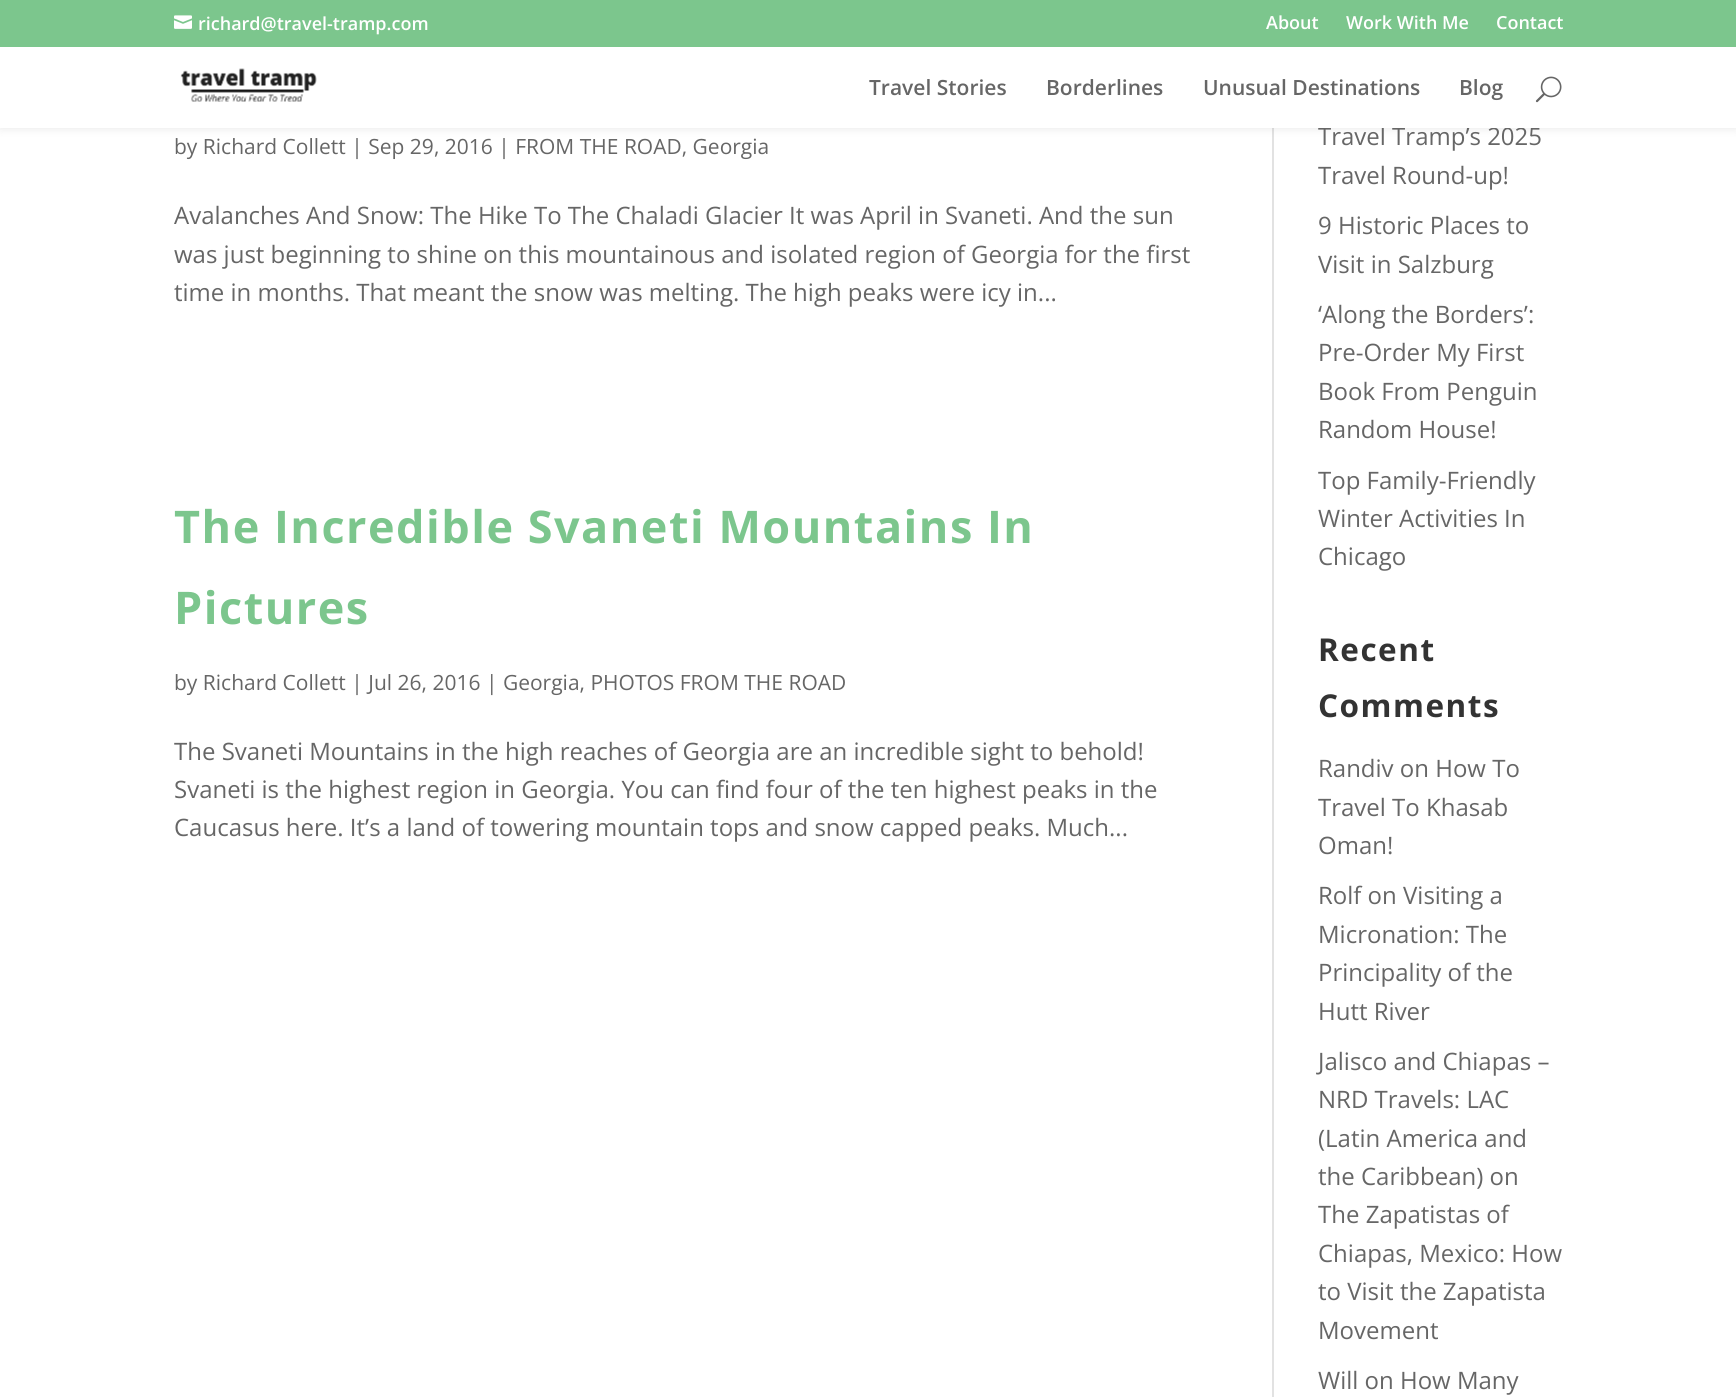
#include <cairo.h>
#include <math.h>
#include <stddef.h>


static void set_color(cairo_t *cr, unsigned color) {
    cairo_set_source_rgb(cr, (color >> 16) / 255.0, (color >> 8 & 255) / 255.0, (color & 255) / 255.0);
}

static void draw_text(cairo_t *cr, double x, double y, const char *s, const char *family, double size, int italic, int bold, unsigned color) {
    cairo_select_font_face(cr, family, italic ? CAIRO_FONT_SLANT_ITALIC : CAIRO_FONT_SLANT_NORMAL,
        bold ? CAIRO_FONT_WEIGHT_BOLD : CAIRO_FONT_WEIGHT_NORMAL);
    cairo_set_font_size(cr, size);
    set_color(cr, color);
    cairo_move_to(cr, x, y);
    cairo_show_text(cr, s);
}

static void draw_spaced(cairo_t *cr, double x, double y, const char *s, double letter, double word) {
    cairo_move_to(cr, x, y);
    while (*s) {
        char ch[5] = {0};
        int n = 0;
        do ch[n++] = *s++; while ((*s & 0xC0) == 0x80);
        cairo_show_text(cr, ch);
        cairo_rel_move_to(cr, letter + word * (*ch == ' '), 0);
    }
}

static void fill_rect(cairo_t *cr, double x, double y, double w, double h, unsigned color) {
    set_color(cr, color);
    cairo_rectangle(cr, x, y, w, h);
    cairo_fill(cr);
}

static void rounded_rect(cairo_t *cr, double x, double y, double w, double h, double r) {
    cairo_new_sub_path(cr);
    cairo_arc(cr, x + w - r, y + h - r, r, 0, M_PI / 2);
    cairo_arc(cr, x + r, y + h - r, r, M_PI / 2, M_PI);
    cairo_arc(cr, x + r, y + r, r, M_PI, 1.5 * M_PI);
    cairo_arc(cr, x + w - r, y + r, r, 1.5 * M_PI, 2 * M_PI);
    cairo_close_path(cr);
}

static void draw_shadow(cairo_t *cr, double x, double y, double w, double h, double r, double blur, double alpha) {
    cairo_push_group_with_content(cr, CAIRO_CONTENT_ALPHA);
    cairo_set_operator(cr, CAIRO_OPERATOR_SOURCE);
    for (int i = 15; i >= -15 && fmin(w, h) + blur * i / 3 > 0; i -= 2) {
        double e = blur * i / 6;
        cairo_set_source_rgba(cr, 0, 0, 0, alpha * erfc((i - 1) / 8.5) / 2);
        rounded_rect(cr, x - e, y - e, w + 2 * e, h + 2 * e, fmax(0, fmin(r + e + blur * .6, fmin(w, h) / 2 + e)));
        cairo_fill(cr);
    }
    cairo_pattern_t *soft = cairo_pop_group(cr);
    cairo_mask(cr, soft);
    cairo_pattern_destroy(soft);
}

static void draw_image(cairo_t *cr, const char *path, double x, double y, double w, double h) {
    cairo_surface_t *image = cairo_image_surface_create_from_png(path);
    cairo_save(cr);
    cairo_set_source_surface(cr, image, x, y);
    cairo_rectangle(cr, x, y, w, h);
    cairo_fill(cr);
    cairo_restore(cr);
    cairo_surface_destroy(image);
}

int main(void) {
    cairo_surface_t *surface = cairo_image_surface_create(CAIRO_FORMAT_RGB24, 1736, 1397);
    cairo_t *cr = cairo_create(surface);
    cairo_font_options_t *options = cairo_font_options_create();
    cairo_font_options_set_hint_metrics(options, CAIRO_HINT_METRICS_OFF);
    cairo_font_options_set_hint_style(options, CAIRO_HINT_STYLE_NONE);
    cairo_set_font_options(cr, options);
    cairo_set_miter_limit(cr, 4);
    set_color(cr, 0xFFFFFF);
    cairo_paint(cr);
    fill_rect(cr, 1272, 128, 2, 1269, 0xE2E2E2);
    set_color(cr, 0x000000);
    draw_shadow(cr, 0, 47, 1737, 81, 0, 5, 0.1);
    fill_rect(cr, 0, 0, 1736, 47, 0x7CC68D);
    draw_image(cr, "assets/img1.png", 174, 15, 18, 14);
    draw_text(cr, 198, 30, "richard@travel-tramp.com", "Open Sans SemiBold", 18, 0, 0, 0xFFFFFF);
    draw_text(cr, 1266, 29, "About", "Open Sans SemiBold", 18, 0, 0, 0xFFFFFF);
    draw_text(cr, 1346, 29, "Work With Me", "Open Sans SemiBold", 18, 0, 0, 0xFFFFFF);
    draw_text(cr, 1496, 29, "Contact", "Open Sans SemiBold", 18, 0, 0, 0xFFFFFF);
    draw_text(cr, 1318, 145, "Travel Tramp’s 2025", "Open Sans", 24, 0, 0, 0x666666);
    fill_rect(cr, 0, 47, 1736, 81, 0xFFFFFF);
    draw_image(cr, "assets/img2.png", 180, 68, 137, 34);
    draw_text(cr, 869, 95, "Travel Stories", "Open Sans SemiBold", 21, 0, 0, 0x666666);
    draw_text(cr, 1046, 95, "Borderlines", "Open Sans SemiBold", 21, 0, 0, 0x666666);
    draw_text(cr, 1203, 95, "Unusual Destinations", "Open Sans SemiBold", 21, 0, 0, 0x666666);
    draw_text(cr, 1459, 95, "Blog", "Open Sans SemiBold", 21, 0, 0, 0x666666);
    draw_image(cr, "assets/img3.png", 1535, 76, 27, 27);
    draw_text(cr, 174, 154, "by Richard Collett | Sep 29, 2016 | FROM THE ROAD, Georgia", "Open Sans", 21, 0, 0, 0x666666);
    draw_text(cr, 174, 224, "Avalanches And Snow: The Hike To The Chaladi Glacier It was April in Svaneti. And the sun", "Open Sans", 24, 0, 0, 0x666666);
    draw_text(cr, 174, 263, "was just beginning to shine on this mountainous and isolated region of Georgia for the first", "Open Sans", 24, 0, 0, 0x666666);
    draw_text(cr, 174, 301, "time in months. That meant the snow was melting. The high peaks were icy in...", "Open Sans", 24, 0, 0, 0x666666);
    cairo_select_font_face(cr, "Open Sans", CAIRO_FONT_SLANT_NORMAL, CAIRO_FONT_WEIGHT_BOLD);
    cairo_set_font_size(cr, 45);
    set_color(cr, 0x7CC68D);
    draw_spaced(cr, 174, 543, "The Incredible Svaneti Mountains In", 1.5, 0);
    draw_spaced(cr, 174, 624, "Pictures", 1.5, 0);
    draw_text(cr, 174, 690, "by Richard Collett | Jul 26, 2016 | Georgia, PHOTOS FROM THE ROAD", "Open Sans", 21, 0, 0, 0x666666);
    draw_text(cr, 174, 760, "The Svaneti Mountains in the high reaches of Georgia are an incredible sight to behold!", "Open Sans", 24, 0, 0, 0x666666);
    draw_text(cr, 174, 798, "Svaneti is the highest region in Georgia. You can find four of the ten highest peaks in the", "Open Sans", 24, 0, 0, 0x666666);
    draw_text(cr, 174, 836, "Caucasus here. It’s a land of towering mountain tops and snow capped peaks. Much...", "Open Sans", 24, 0, 0, 0x666666);
    draw_text(cr, 1318, 184, "Travel Round-up!", "Open Sans", 24, 0, 0, 0x666666);
    draw_text(cr, 1318, 234, "9 Historic Places to", "Open Sans", 24, 0, 0, 0x666666);
    draw_text(cr, 1318, 273, "Visit in Salzburg", "Open Sans", 24, 0, 0, 0x666666);
    draw_text(cr, 1318, 323, "‘Along the Borders’:", "Open Sans", 24, 0, 0, 0x666666);
    draw_text(cr, 1318, 361, "Pre-Order My First", "Open Sans", 24, 0, 0, 0x666666);
    draw_text(cr, 1318, 400, "Book From Penguin", "Open Sans", 24, 0, 0, 0x666666);
    draw_text(cr, 1318, 438, "Random House!", "Open Sans", 24, 0, 0, 0x666666);
    draw_text(cr, 1318, 489, "Top Family-Friendly", "Open Sans", 24, 0, 0, 0x666666);
    draw_text(cr, 1318, 527, "Winter Activities In", "Open Sans", 24, 0, 0, 0x666666);
    draw_text(cr, 1318, 565, "Chicago", "Open Sans", 24, 0, 0, 0x666666);
    cairo_select_font_face(cr, "Open Sans", CAIRO_FONT_SLANT_NORMAL, CAIRO_FONT_WEIGHT_BOLD);
    cairo_set_font_size(cr, 31.5);
    set_color(cr, 0x333333);
    draw_spaced(cr, 1318, 661, "Recent", 1.5, 0);
    draw_spaced(cr, 1318, 717, "Comments", 1.5, 0);
    draw_text(cr, 1318, 777, "Randiv on How To", "Open Sans", 24, 0, 0, 0x666666);
    draw_text(cr, 1318, 816, "Travel To Khasab", "Open Sans", 24, 0, 0, 0x666666);
    draw_text(cr, 1318, 854, "Oman!", "Open Sans", 24, 0, 0, 0x666666);
    draw_text(cr, 1318, 904, "Rolf on Visiting a", "Open Sans", 24, 0, 0, 0x666666);
    draw_text(cr, 1318, 943, "Micronation: The", "Open Sans", 24, 0, 0, 0x666666);
    draw_text(cr, 1318, 981, "Principality of the", "Open Sans", 24, 0, 0, 0x666666);
    draw_text(cr, 1318, 1020, "Hutt River", "Open Sans", 24, 0, 0, 0x666666);
    draw_text(cr, 1318, 1070, "Jalisco and Chiapas –", "Open Sans", 24, 0, 0, 0x666666);
    draw_text(cr, 1318, 1108, "NRD Travels: LAC", "Open Sans", 24, 0, 0, 0x666666);
    draw_text(cr, 1318, 1147, "(Latin America and", "Open Sans", 24, 0, 0, 0x666666);
    draw_text(cr, 1318, 1185, "the Caribbean) on", "Open Sans", 24, 0, 0, 0x666666);
    draw_text(cr, 1318, 1223, "The Zapatistas of", "Open Sans", 24, 0, 0, 0x666666);
    draw_text(cr, 1318, 1262, "Chiapas, Mexico: How", "Open Sans", 24, 0, 0, 0x666666);
    draw_text(cr, 1318, 1300, "to Visit the Zapatista", "Open Sans", 24, 0, 0, 0x666666);
    draw_text(cr, 1318, 1339, "Movement", "Open Sans", 24, 0, 0, 0x666666);
    draw_text(cr, 1318, 1389, "Will on How Many", "Open Sans", 24, 0, 0, 0x666666);
    cairo_surface_write_to_png(surface, "output.png");
    cairo_font_options_destroy(options);
    cairo_destroy(cr);
    cairo_surface_destroy(surface);
    return 0;
}
